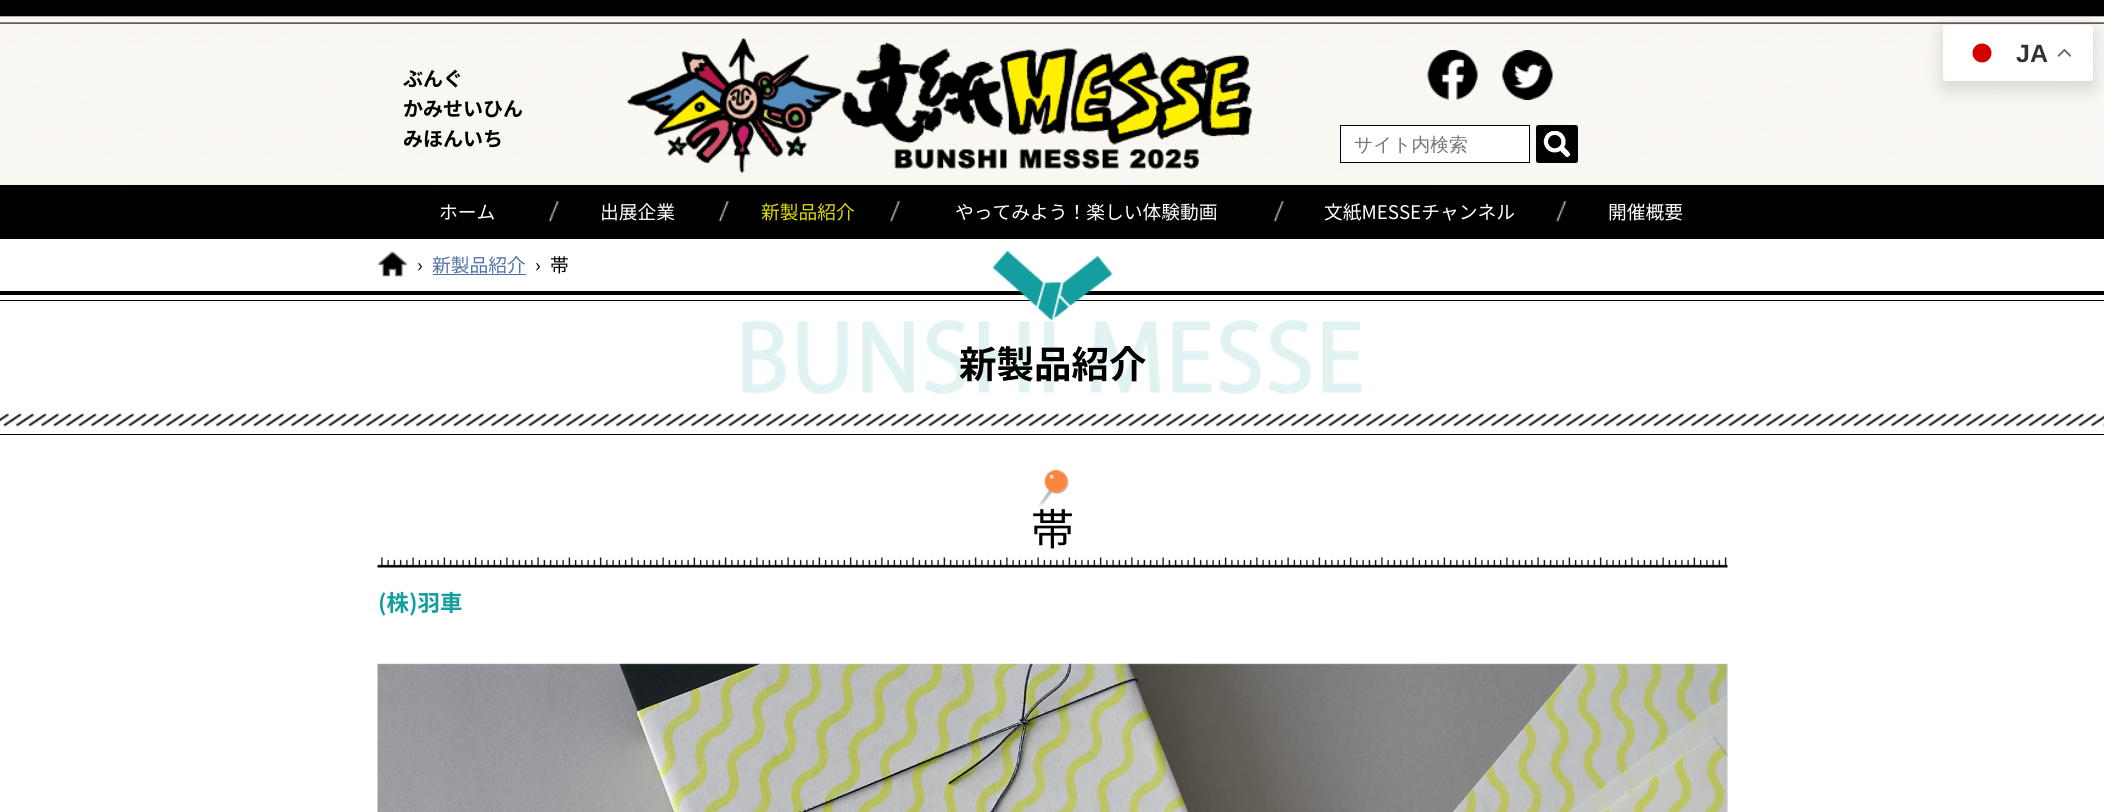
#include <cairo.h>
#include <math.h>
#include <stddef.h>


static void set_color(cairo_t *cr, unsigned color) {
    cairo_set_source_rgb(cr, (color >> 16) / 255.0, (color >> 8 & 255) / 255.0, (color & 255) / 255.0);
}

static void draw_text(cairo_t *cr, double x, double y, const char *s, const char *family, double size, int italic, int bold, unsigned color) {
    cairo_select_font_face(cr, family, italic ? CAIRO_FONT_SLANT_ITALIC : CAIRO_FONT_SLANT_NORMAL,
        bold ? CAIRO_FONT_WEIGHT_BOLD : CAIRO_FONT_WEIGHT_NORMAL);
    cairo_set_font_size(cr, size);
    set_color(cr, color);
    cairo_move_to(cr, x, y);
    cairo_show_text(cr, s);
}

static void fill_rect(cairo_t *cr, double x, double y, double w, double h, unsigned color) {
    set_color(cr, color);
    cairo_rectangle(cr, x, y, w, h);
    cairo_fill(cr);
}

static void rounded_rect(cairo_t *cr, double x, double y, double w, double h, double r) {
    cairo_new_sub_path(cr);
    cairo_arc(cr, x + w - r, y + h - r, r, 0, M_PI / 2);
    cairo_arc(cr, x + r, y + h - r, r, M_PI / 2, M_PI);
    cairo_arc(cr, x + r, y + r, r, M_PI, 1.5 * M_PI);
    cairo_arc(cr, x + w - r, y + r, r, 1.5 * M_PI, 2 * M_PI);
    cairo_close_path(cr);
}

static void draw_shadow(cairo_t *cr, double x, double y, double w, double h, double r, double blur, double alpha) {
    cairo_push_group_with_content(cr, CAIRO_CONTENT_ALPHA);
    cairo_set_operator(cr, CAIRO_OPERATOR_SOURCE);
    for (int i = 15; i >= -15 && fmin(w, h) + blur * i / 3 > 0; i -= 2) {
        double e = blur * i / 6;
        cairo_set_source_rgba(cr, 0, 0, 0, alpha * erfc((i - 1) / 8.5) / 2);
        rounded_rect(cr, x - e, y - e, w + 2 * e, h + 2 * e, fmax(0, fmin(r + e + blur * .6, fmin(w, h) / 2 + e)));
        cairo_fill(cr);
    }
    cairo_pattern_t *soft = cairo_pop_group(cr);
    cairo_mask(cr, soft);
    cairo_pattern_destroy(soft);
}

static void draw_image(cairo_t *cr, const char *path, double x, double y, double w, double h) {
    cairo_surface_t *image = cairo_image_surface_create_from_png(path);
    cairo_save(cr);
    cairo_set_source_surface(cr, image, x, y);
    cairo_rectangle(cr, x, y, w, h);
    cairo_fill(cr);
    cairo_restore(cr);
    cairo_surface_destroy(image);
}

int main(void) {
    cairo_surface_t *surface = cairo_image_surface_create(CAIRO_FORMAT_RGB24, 2104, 812);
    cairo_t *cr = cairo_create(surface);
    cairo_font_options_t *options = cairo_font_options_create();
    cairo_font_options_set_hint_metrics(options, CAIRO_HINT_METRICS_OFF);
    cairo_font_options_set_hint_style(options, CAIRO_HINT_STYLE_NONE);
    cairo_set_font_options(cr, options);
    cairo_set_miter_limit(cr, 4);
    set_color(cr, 0xFFFFFF);
    cairo_paint(cr);
    draw_image(cr, "assets/img2.png", 0, 0, 2104, 185);
    set_color(cr, 0x000000);
    draw_shadow(cr, 1943, 31, 150, 57, 2.5, 9.5, 0.15);
    set_color(cr, 0xFFFFFF);
    rounded_rect(cr, 1943, 25, 150, 56, 2.5);
    cairo_fill(cr);
    set_color(cr, 0xD30000);
    cairo_arc(cr, 1982, 53, 9.5, 0, 2 * M_PI);
    cairo_fill(cr);
    draw_text(cr, 2016, 62, "JA", "Liberation Sans", 25, 0, 1, 0x333333);
    draw_image(cr, "assets/img1.png", 2058, 48, 13, 9);
    draw_text(cr, 403, 86, "ぶんぐ", "Noto Sans JP", 20, 0, 1, 0x000000);
    draw_text(cr, 403, 116, "かみせいひん", "Noto Sans JP", 20, 0, 1, 0x000000);
    draw_text(cr, 403, 146, "みほんいち", "Noto Sans JP", 20, 0, 1, 0x000000);
    draw_image(cr, "assets/img3.png", 627, 38, 626, 135);
    draw_image(cr, "assets/img4.png", 1427, 50, 51, 50);
    draw_image(cr, "assets/img5.png", 1502, 50, 51, 50);
    set_color(cr, 0xFFFFFF);
    cairo_rectangle(cr, 1340.5, 125.5, 189, 37);
    cairo_fill_preserve(cr);
    set_color(cr, 0x000000);
    cairo_set_line_width(cr, 1);
    cairo_stroke(cr);
    draw_text(cr, 1354, 151, "サイト内検索", "WenQuanYi Zen Hei Medium", 18.75, 0, 0, 0x757575);
    set_color(cr, 0x000000);
    rounded_rect(cr, 1536, 125, 42, 38, 2.5);
    cairo_fill(cr);
    draw_image(cr, "assets/img6.png", 1543, 131, 27, 26);
    fill_rect(cr, 0, 185, 2104, 54, 0x000000);
    draw_text(cr, 439, 219, "ホーム", "Noto Sans JP", 18.75, 0, 0, 0xFFFFFF);
    draw_image(cr, "assets/img7.png", 548, 201, 11, 21);
    draw_text(cr, 600, 219, "出展企業", "Noto Sans JP", 18.75, 0, 0, 0xFFFFFF);
    draw_image(cr, "assets/img7.png", 718, 201, 11, 21);
    draw_text(cr, 761, 219, "新製品紹介", "Noto Sans JP", 18.75, 0, 0, 0xDDDB00);
    draw_image(cr, "assets/img8.png", 890, 201, 10, 21);
    draw_text(cr, 955, 219, "やってみよう！楽しい体験動画", "Noto Sans JP", 18.75, 0, 0, 0xFFFFFF);
    draw_image(cr, "assets/img9.png", 1273, 201, 11, 21);
    draw_text(cr, 1324, 219, "文紙MESSEチャンネル", "Noto Sans JP", 18.75, 0, 0, 0xFFFFFF);
    draw_image(cr, "assets/img10.png", 1556, 201, 11, 21);
    draw_text(cr, 1608, 219, "開催概要", "Noto Sans JP", 18.75, 0, 0, 0xFFFFFF);
    fill_rect(cr, 0, 291, 2104, 4, 0x000000);
    draw_image(cr, "assets/img11.png", 377, 251, 31, 26);
    draw_text(cr, 417, 272, "›", "Noto Sans JP", 18.75, 0, 0, 0x000000);
    draw_text(cr, 432, 272, "新製品紹介", "Noto Sans JP", 18.75, 0, 0, 0x5072A5);
    fill_rect(cr, 433, 274, 93, 1, 0x5072A5);
    draw_text(cr, 535, 272, "›", "Noto Sans JP", 18.75, 0, 0, 0x000000);
    draw_text(cr, 550, 272, "帯", "Noto Sans JP", 18.75, 0, 0, 0x000000);
    draw_image(cr, "assets/img12.png", 0, 413, 2104, 14);
    fill_rect(cr, 0, 300, 2104, 1, 0x000000);
    fill_rect(cr, 0, 434, 2104, 1, 0x000000);
    draw_image(cr, "assets/img13.png", 742, 251, 621, 143);
    draw_text(cr, 959, 378, "新製品紹介", "Noto Sans JP", 37.5, 0, 1, 0x000000);
    draw_image(cr, "assets/img14.png", 377, 557, 1351, 11);
    draw_image(cr, "assets/img15.png", 1037, 470, 32, 38);
    draw_text(cr, 1031, 545, "帯", "Noto Sans JP", 43, 0, 0, 0x000000);
    draw_text(cr, 378, 611, "(株)羽車", "Noto Sans JP", 22.5, 0, 1, 0x149EA0);
    draw_image(cr, "assets/img16.png", 377, 663, 1351, 149);
    cairo_surface_write_to_png(surface, "output.png");
    cairo_font_options_destroy(options);
    cairo_destroy(cr);
    cairo_surface_destroy(surface);
    return 0;
}
